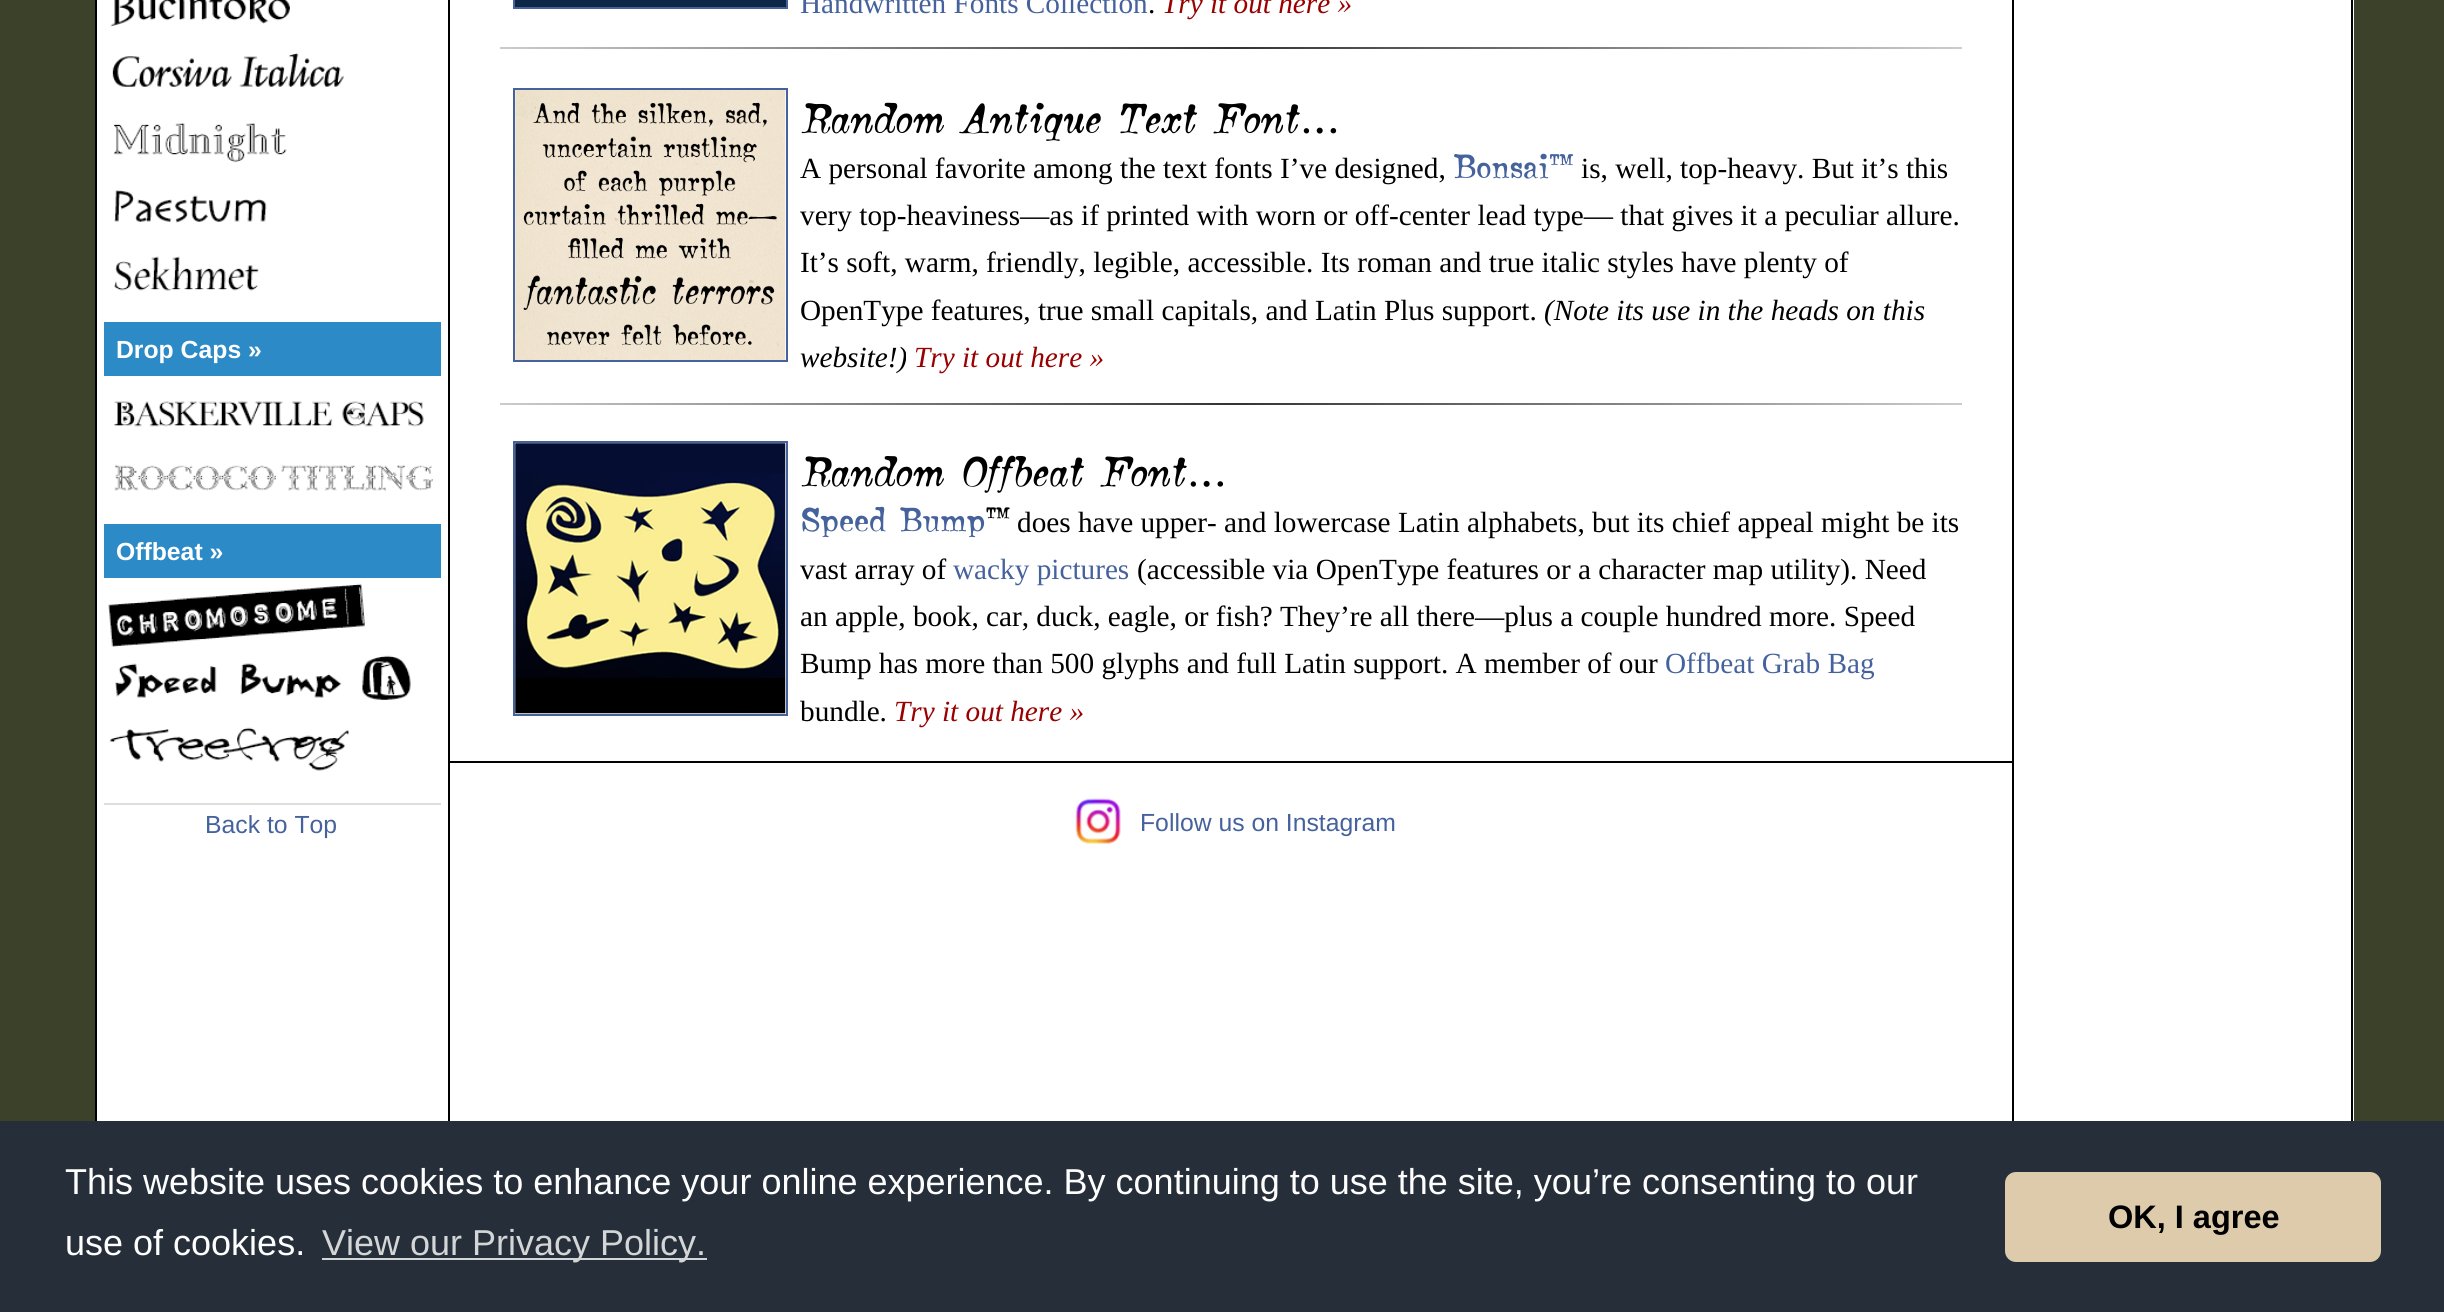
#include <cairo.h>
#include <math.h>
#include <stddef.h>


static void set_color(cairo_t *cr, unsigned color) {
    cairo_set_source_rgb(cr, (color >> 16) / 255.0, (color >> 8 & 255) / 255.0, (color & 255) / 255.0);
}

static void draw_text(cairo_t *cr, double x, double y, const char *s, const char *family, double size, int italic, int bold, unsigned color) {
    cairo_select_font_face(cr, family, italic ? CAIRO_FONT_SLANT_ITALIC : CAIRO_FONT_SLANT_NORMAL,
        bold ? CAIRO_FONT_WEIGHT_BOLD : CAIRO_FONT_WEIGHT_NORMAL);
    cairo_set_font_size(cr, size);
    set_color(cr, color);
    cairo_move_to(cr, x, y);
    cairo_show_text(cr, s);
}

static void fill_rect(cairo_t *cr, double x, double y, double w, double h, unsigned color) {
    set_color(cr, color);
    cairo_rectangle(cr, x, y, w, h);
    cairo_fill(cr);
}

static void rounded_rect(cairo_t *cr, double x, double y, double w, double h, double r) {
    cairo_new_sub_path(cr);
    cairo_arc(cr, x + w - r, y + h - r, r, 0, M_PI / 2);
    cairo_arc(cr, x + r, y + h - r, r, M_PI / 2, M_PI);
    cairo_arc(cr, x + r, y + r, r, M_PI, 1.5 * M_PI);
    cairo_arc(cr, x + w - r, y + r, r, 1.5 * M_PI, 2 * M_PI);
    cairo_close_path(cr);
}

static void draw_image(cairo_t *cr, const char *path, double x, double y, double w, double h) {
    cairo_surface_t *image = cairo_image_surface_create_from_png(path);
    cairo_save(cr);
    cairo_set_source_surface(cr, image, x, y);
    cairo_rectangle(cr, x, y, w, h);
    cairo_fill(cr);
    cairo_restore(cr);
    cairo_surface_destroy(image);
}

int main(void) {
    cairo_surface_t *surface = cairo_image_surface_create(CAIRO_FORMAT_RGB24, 2444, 1312);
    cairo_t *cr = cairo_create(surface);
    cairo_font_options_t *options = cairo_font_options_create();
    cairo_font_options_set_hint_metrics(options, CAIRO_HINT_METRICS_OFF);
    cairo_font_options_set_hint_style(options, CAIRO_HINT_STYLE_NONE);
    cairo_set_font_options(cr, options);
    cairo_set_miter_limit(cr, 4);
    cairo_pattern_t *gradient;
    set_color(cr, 0x3C4129);
    cairo_paint(cr);
    fill_rect(cr, 97, 0, 2257, 1121, 0xFFFFFF);
    fill_rect(cr, 95, 0, 2, 1121, 0x000000);
    fill_rect(cr, 2351, 0, 2, 1121, 0x000000);
    draw_image(cr, "assets/img1.png", 110, 0, 180, 27);
    draw_image(cr, "assets/img2.png", 112, 52, 232, 35);
    draw_image(cr, "assets/img3.png", 114, 123, 173, 40);
    draw_image(cr, "assets/img4.png", 114, 190, 153, 33);
    draw_image(cr, "assets/img5.png", 114, 256, 145, 35);
    fill_rect(cr, 104, 322, 337, 54, 0x2C8AC7);
    draw_text(cr, 116, 358, "Drop Caps »", "Liberation Sans", 24.75, 0, 1, 0xFEFEFE);
    draw_image(cr, "assets/img6.png", 114, 401, 310, 26);
    draw_image(cr, "assets/img7.png", 114, 464, 319, 27);
    fill_rect(cr, 104, 524, 337, 54, 0x2C8AC7);
    draw_text(cr, 116, 560, "Offbeat »", "Liberation Sans", 24.75, 0, 1, 0xFEFEFE);
    draw_image(cr, "assets/img8.png", 108, 583, 257, 64);
    draw_image(cr, "assets/img9.png", 115, 655, 296, 45);
    draw_image(cr, "assets/img10.png", 109, 727, 240, 44);
    fill_rect(cr, 104, 803, 337, 2, 0xDEDEDE);
    draw_text(cr, 205, 833, "Back to Top", "Liberation Sans", 24.75, 0, 0, 0x45629D);
    fill_rect(cr, 448, 0, 2, 1121, 0x000000);
    cairo_rectangle(cr, 514, -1, 273, 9);
    set_color(cr, 0x45629D);
    cairo_stroke(cr);
    fill_rect(cr, 515, 0, 271, 7, 0x0D2747);
    draw_text(cr, 800, 13, "Handwritten Fonts Collection", "Liberation Serif", 29.25, 0, 0, 0x45629D);
    draw_text(cr, 1148, 13, ".", "Liberation Serif", 29.25, 0, 0, 0x000000);
    draw_text(cr, 1162, 13, "Try it out here »", "Liberation Serif", 29.25, 1, 0, 0x990000);
    gradient = cairo_pattern_create_linear(500, 48, 1962, 48);
    cairo_pattern_add_color_stop_rgba(gradient, 0, 0.8, 0.8, 0.8, 1);
    cairo_pattern_add_color_stop_rgba(gradient, 0.5, 0.2, 0.2, 0.2, 1);
    cairo_pattern_add_color_stop_rgba(gradient, 1, 0.8, 0.8, 0.8, 1);
    cairo_set_source(cr, gradient);
    cairo_pattern_destroy(gradient);
    cairo_rectangle(cr, 500, 47, 1462, 2);
    cairo_fill(cr);
    cairo_rectangle(cr, 514, 89, 273, 272);
    set_color(cr, 0x45629D);
    cairo_stroke(cr);
    draw_image(cr, "assets/img11.png", 515, 90, 271, 270);
    draw_image(cr, "assets/img12.png", 801, 102, 536, 39);
    draw_text(cr, 800, 178, "A personal favorite among the text fonts I’ve designed,", "Liberation Serif", 29.25, 0, 0, 0x000000);
    draw_image(cr, "assets/img13.png", 1454, 153, 120, 26);
    draw_text(cr, 1581, 178, "is, well, top-heavy. But it’s this", "Liberation Serif", 29.25, 0, 0, 0x000000);
    draw_text(cr, 800, 225, "very top-heaviness—as if printed with worn or off-center lead type— that gives it a peculiar allure.", "Liberation Serif", 29.25, 0, 0, 0x000000);
    draw_text(cr, 800, 272, "It’s soft, warm, friendly, legible, accessible. Its roman and true italic styles have plenty of", "Liberation Serif", 29.25, 0, 0, 0x000000);
    draw_text(cr, 800, 320, "OpenType features, true small capitals, and Latin Plus support.", "Liberation Serif", 29.25, 0, 0, 0x000000);
    draw_text(cr, 1544, 320, "(Note its use in the heads on this", "Liberation Serif", 29.25, 1, 0, 0x000000);
    draw_text(cr, 800, 367, "website!)", "Liberation Serif", 29.25, 1, 0, 0x000000);
    draw_text(cr, 914, 367, "Try it out here »", "Liberation Serif", 29.25, 1, 0, 0x990000);
    gradient = cairo_pattern_create_linear(500, 404, 1962, 404);
    cairo_pattern_add_color_stop_rgba(gradient, 0, 0.8, 0.8, 0.8, 1);
    cairo_pattern_add_color_stop_rgba(gradient, 0.5, 0.2, 0.2, 0.2, 1);
    cairo_pattern_add_color_stop_rgba(gradient, 1, 0.8, 0.8, 0.8, 1);
    cairo_set_source(cr, gradient);
    cairo_pattern_destroy(gradient);
    cairo_rectangle(cr, 500, 403, 1462, 2);
    cairo_fill(cr);
    cairo_rectangle(cr, 514, 442, 273, 273);
    set_color(cr, 0x45629D);
    cairo_stroke(cr);
    draw_image(cr, "assets/img14.png", 515, 443, 271, 271);
    draw_image(cr, "assets/img15.png", 801, 455, 422, 38);
    draw_image(cr, "assets/img16.png", 802, 506, 183, 32);
    draw_image(cr, "assets/img17.png", 986, 507, 24, 12);
    draw_text(cr, 1017, 532, "does have upper- and lowercase Latin alphabets, but its chief appeal might be its", "Liberation Serif", 29.25, 0, 0, 0x000000);
    draw_text(cr, 800, 579, "vast array of", "Liberation Serif", 29.25, 0, 0, 0x000000);
    draw_text(cr, 953, 579, "wacky pictures", "Liberation Serif", 29.25, 0, 0, 0x45629D);
    draw_text(cr, 1137, 579, "(accessible via OpenType features or a character map utility). Need", "Liberation Serif", 29.25, 0, 0, 0x000000);
    draw_text(cr, 800, 626, "an apple, book, car, duck, eagle, or fish? They’re all there—plus a couple hundred more. Speed", "Liberation Serif", 29.25, 0, 0, 0x000000);
    draw_text(cr, 800, 673, "Bump has more than 500 glyphs and full Latin support. A member of our", "Liberation Serif", 29.25, 0, 0, 0x000000);
    draw_text(cr, 1665, 673, "Offbeat Grab Bag", "Liberation Serif", 29.25, 0, 0, 0x45629D);
    draw_text(cr, 800, 721, "bundle.", "Liberation Serif", 29.25, 0, 0, 0x000000);
    draw_text(cr, 894, 721, "Try it out here »", "Liberation Serif", 29.25, 1, 0, 0x990000);
    fill_rect(cr, 450, 761, 1562, 2, 0x000000);
    draw_image(cr, "assets/img18.png", 1075, 798, 46, 46);
    draw_text(cr, 1140, 831, "Follow us on Instagram", "Liberation Sans", 24.75, 0, 0, 0x45629D);
    fill_rect(cr, 2012, 0, 2, 1121, 0x000000);
    fill_rect(cr, 0, 1121, 2444, 191, 0x252E39);
    draw_text(cr, 65, 1194, "This website uses cookies to enhance your online experience. By continuing to use the site, you’re consenting to our", "Liberation Sans", 36, 0, 0, 0xFEFEFE);
    draw_text(cr, 65, 1255, "use of cookies.", "Liberation Sans", 36, 0, 0, 0xFEFEFE);
    fill_rect(cr, 322, 1258, 385, 2, 0xD3D5D7);
    draw_text(cr, 322, 1255, "View our Privacy Policy.", "Liberation Sans", 36, 0, 0, 0xD3D5D7);
    set_color(cr, 0xDDCBAC);
    rounded_rect(cr, 2005, 1172, 376, 90, 11);
    cairo_fill(cr);
    draw_text(cr, 2108, 1228, "OK, I agree", "Liberation Sans", 32.5, 0, 1, 0x000000);
    cairo_surface_write_to_png(surface, "output.png");
    cairo_font_options_destroy(options);
    cairo_destroy(cr);
    cairo_surface_destroy(surface);
    return 0;
}
